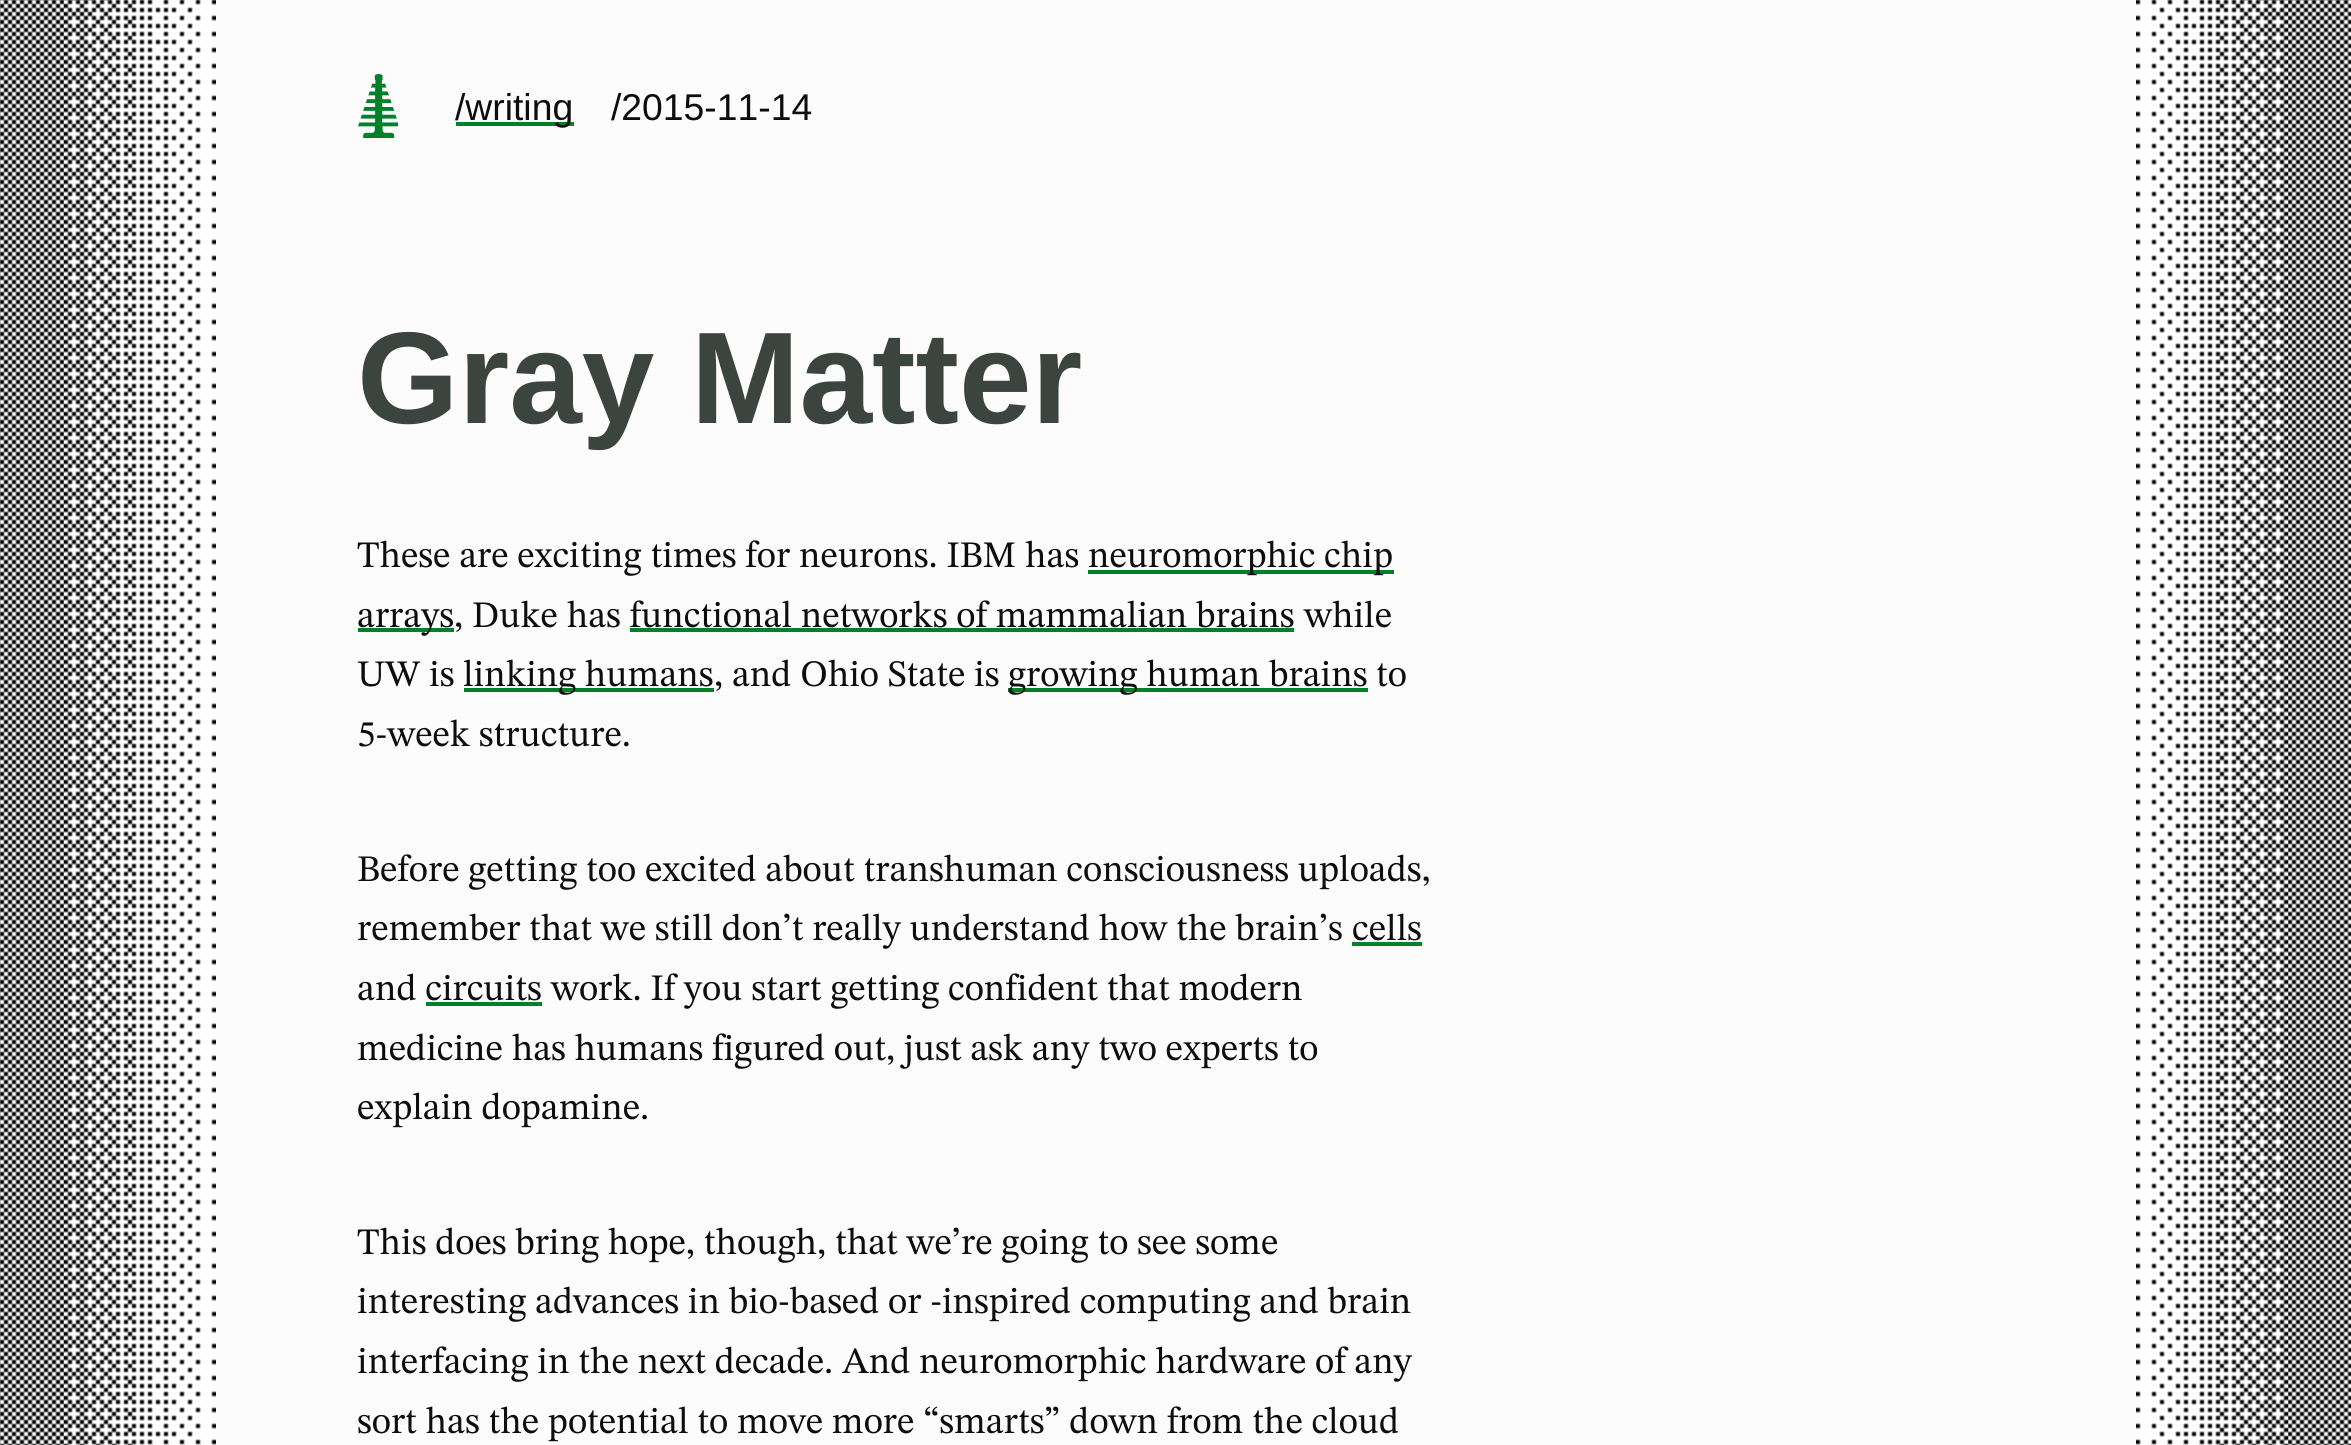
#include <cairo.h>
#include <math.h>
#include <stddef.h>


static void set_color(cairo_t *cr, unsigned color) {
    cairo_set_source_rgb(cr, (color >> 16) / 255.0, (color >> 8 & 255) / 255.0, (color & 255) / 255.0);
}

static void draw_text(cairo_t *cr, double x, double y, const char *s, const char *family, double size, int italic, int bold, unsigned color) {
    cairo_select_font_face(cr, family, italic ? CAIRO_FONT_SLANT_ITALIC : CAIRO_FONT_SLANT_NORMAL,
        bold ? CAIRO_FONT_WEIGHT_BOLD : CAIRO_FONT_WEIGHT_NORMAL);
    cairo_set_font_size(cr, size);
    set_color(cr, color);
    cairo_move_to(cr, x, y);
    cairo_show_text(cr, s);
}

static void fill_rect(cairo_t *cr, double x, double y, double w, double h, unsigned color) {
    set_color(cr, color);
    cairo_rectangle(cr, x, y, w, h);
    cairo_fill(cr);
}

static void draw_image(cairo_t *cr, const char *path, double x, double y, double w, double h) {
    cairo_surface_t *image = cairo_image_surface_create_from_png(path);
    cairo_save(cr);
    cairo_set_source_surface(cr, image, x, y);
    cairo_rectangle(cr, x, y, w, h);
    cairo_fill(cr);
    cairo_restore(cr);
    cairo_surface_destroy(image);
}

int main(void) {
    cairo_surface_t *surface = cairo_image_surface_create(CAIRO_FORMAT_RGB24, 2351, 1445);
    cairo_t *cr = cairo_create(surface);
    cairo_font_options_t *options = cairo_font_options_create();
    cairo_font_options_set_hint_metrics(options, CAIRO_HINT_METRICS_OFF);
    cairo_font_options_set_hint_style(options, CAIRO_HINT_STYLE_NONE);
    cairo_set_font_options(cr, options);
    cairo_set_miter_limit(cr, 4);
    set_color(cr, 0xFCFCFC);
    cairo_paint(cr);
    draw_image(cr, "assets/img1.png", 0, 0, 216, 1445);
    draw_image(cr, "assets/img2.png", 358, 74, 40, 64);
    fill_rect(cr, 456, 122, 118, 4, 0x00802B);
    draw_text(cr, 455, 120, "/writing", "Liberation Sans", 37.3, 0, 0, 0x0D0D0D);
    draw_text(cr, 611, 120, "/2015-11-14", "Liberation Sans", 37.3, 0, 0, 0x0D0D0D);
    draw_text(cr, 357, 423, "Gray Matter", "Liberation Sans", 130.5, 0, 1, 0x3B443E);
    draw_text(cr, 357, 567, "These are exciting times for neurons. IBM has", "STIX Two Text", 37.3, 0, 0, 0x0D0D0D);
    fill_rect(cr, 1088, 570, 306, 4, 0x00802B);
    draw_text(cr, 1088, 567, "neuromorphic chip", "STIX Two Text", 37.3, 0, 0, 0x0D0D0D);
    fill_rect(cr, 358, 628, 96, 4, 0x00802B);
    draw_text(cr, 357, 627, "arrays", "STIX Two Text", 37.3, 0, 0, 0x0D0D0D);
    draw_text(cr, 454, 627, ", Duke has functional networks of mammalian brains", "STIX Two Text", 37.3, 0, 0, 0x0D0D0D);
    draw_text(cr, 1304, 627, "while", "STIX Two Text", 37.3, 0, 0, 0x0D0D0D);
    fill_rect(cr, 630, 628, 664, 4, 0x00802B);
    draw_text(cr, 357, 686, "UW is", "STIX Two Text", 37.3, 0, 0, 0x0D0D0D);
    fill_rect(cr, 464, 688, 250, 4, 0x00802B);
    draw_text(cr, 463, 686, "linking humans", "STIX Two Text", 37.3, 0, 0, 0x0D0D0D);
    draw_text(cr, 714, 686, ", and Ohio State is", "STIX Two Text", 37.3, 0, 0, 0x0D0D0D);
    fill_rect(cr, 1008, 688, 360, 4, 0x00802B);
    draw_text(cr, 1008, 686, "growing human brains", "STIX Two Text", 37.3, 0, 0, 0x0D0D0D);
    draw_text(cr, 1376, 686, "to", "STIX Two Text", 37.3, 0, 0, 0x0D0D0D);
    draw_text(cr, 357, 746, "5-week structure.", "STIX Two Text", 37.3, 0, 0, 0x0D0D0D);
    draw_text(cr, 357, 881, "Before getting too excited about transhuman consciousness uploads,", "STIX Two Text", 37.3, 0, 0, 0x0D0D0D);
    draw_text(cr, 357, 940, "remember that we still don’t really understand how the brain’s", "STIX Two Text", 37.3, 0, 0, 0x0D0D0D);
    draw_text(cr, 1352, 940, "cells", "STIX Two Text", 37.3, 0, 0, 0x0D0D0D);
    fill_rect(cr, 1352, 942, 70, 4, 0x00802B);
    draw_text(cr, 357, 1000, "and circuits", "STIX Two Text", 37.3, 0, 0, 0x0D0D0D);
    draw_text(cr, 551, 1000, "work. If you start getting confident that modern", "STIX Two Text", 37.3, 0, 0, 0x0D0D0D);
    fill_rect(cr, 426, 1002, 116, 4, 0x00802B);
    draw_text(cr, 357, 1060, "medicine has humans figured out, just ask any two experts to", "STIX Two Text", 37.3, 0, 0, 0x0D0D0D);
    draw_text(cr, 357, 1119, "explain dopamine.", "STIX Two Text", 37.3, 0, 0, 0x0D0D0D);
    draw_text(cr, 357, 1254, "This does bring hope, though, that we’re going to see some", "STIX Two Text", 37.3, 0, 0, 0x0D0D0D);
    draw_text(cr, 357, 1313, "interesting advances in bio-based or -inspired computing and brain", "STIX Two Text", 37.3, 0, 0, 0x0D0D0D);
    draw_text(cr, 357, 1373, "interfacing in the next decade. And neuromorphic hardware of any", "STIX Two Text", 37.3, 0, 0, 0x0D0D0D);
    draw_text(cr, 357, 1433, "sort has the potential to move more “smarts” down from the cloud", "STIX Two Text", 37.3, 0, 0, 0x0D0D0D);
    draw_image(cr, "assets/img3.png", 2136, 0, 215, 1445);
    cairo_surface_write_to_png(surface, "output.png");
    cairo_font_options_destroy(options);
    cairo_destroy(cr);
    cairo_surface_destroy(surface);
    return 0;
}
